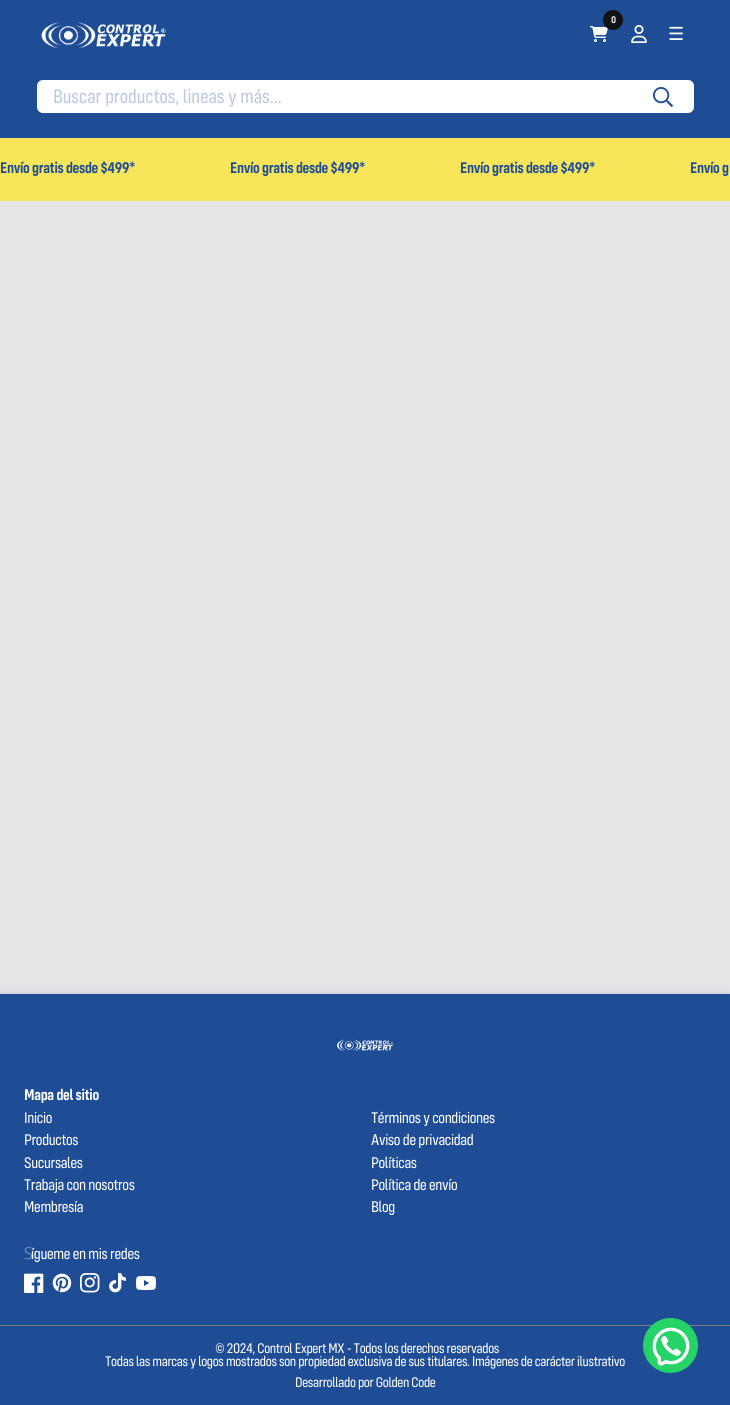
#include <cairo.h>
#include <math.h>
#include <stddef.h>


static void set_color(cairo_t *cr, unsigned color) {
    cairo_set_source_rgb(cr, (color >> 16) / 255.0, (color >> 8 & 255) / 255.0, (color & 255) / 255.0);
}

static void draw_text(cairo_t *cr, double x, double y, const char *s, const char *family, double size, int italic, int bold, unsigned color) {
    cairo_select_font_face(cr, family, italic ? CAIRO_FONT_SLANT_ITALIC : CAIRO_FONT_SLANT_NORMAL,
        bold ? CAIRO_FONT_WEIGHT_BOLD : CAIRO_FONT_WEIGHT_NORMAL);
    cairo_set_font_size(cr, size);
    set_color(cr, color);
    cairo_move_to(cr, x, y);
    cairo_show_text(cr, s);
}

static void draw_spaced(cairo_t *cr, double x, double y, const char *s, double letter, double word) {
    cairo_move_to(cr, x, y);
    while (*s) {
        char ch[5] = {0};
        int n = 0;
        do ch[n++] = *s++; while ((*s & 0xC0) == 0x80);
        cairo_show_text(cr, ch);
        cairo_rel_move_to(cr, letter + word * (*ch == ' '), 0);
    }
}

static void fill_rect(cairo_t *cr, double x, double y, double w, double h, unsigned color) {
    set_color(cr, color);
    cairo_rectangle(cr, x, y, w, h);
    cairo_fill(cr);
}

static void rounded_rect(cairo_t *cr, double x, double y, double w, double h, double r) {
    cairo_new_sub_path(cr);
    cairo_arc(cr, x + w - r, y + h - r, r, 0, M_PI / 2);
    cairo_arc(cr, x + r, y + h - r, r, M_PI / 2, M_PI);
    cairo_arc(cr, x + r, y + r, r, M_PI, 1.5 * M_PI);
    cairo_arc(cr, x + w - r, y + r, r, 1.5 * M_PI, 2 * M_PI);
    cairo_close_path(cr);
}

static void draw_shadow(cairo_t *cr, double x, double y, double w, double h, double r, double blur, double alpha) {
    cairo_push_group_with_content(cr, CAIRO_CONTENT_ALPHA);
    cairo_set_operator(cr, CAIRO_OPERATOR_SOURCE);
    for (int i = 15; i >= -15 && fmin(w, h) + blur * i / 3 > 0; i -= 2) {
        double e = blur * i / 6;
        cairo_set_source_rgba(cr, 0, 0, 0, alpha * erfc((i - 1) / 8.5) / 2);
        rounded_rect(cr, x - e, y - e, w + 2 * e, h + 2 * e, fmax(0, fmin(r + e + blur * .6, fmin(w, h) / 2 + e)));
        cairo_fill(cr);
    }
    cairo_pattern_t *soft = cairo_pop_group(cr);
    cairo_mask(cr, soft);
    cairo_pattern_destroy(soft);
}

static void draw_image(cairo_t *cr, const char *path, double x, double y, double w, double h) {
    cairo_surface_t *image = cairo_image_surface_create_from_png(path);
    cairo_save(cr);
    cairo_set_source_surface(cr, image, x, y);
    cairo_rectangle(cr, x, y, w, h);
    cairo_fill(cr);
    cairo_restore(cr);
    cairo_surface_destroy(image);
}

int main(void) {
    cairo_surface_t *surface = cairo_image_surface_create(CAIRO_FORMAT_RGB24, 730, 1405);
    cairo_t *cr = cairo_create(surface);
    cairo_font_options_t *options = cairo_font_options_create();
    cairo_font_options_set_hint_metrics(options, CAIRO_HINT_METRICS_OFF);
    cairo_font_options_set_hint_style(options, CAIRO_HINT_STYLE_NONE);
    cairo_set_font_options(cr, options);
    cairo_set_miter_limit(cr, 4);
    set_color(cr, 0xE5E5E5);
    cairo_paint(cr);
    fill_rect(cr, 0, 0, 730, 138, 0x1E4D95);
    draw_image(cr, "assets/img1.png", 41, 22, 125, 26);
    draw_image(cr, "assets/img2.png", 590, 26, 18, 16);
    set_color(cr, 0x121212);
    cairo_arc(cr, 613, 20, 10, 0, 2 * M_PI);
    cairo_fill(cr);
    draw_text(cr, 611, 23, "0", "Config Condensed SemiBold", 10, 0, 0, 0xFFFFFF);
    draw_image(cr, "assets/img3.png", 631, 25, 16, 18);
    draw_text(cr, 668, 40, "☰", "DejaVu Sans", 18, 0, 0, 0xFFFFFF);
    rounded_rect(cr, 37, 80, 657, 33, 6);
    cairo_fill(cr);
    draw_text(cr, 53, 103, "Buscar productos, lineas y más...", "Config Condensed", 20, 0, 0, 0xBCCADF);
    draw_image(cr, "assets/img4.png", 653, 87, 20, 20);
    fill_rect(cr, 0, 138, 730, 63, 0xF8E559);
    cairo_select_font_face(cr, "Config Condensed SemiBold", CAIRO_FONT_SLANT_NORMAL, CAIRO_FONT_WEIGHT_NORMAL);
    cairo_set_font_size(cr, 16);
    set_color(cr, 0x1E4D95);
    draw_spaced(cr, 0, 173, "Envío gratis desde $499*", -0.32, 0);
    draw_spaced(cr, 230, 173, "Envío gratis desde $499*", -0.32, 0);
    draw_spaced(cr, 460, 173, "Envío gratis desde $499*", -0.32, 0);
    draw_spaced(cr, 690, 173, "Envío g", -0.32, 0);
    set_color(cr, 0x1E4D95);
    draw_shadow(cr, 0, 994, 730, 411, 0, 4, 0.2);
    fill_rect(cr, 0, 994, 730, 411, 0x1E4D95);
    draw_image(cr, "assets/img5.png", 337, 1039, 56, 12);
    set_color(cr, 0xFFFFFF);
    draw_spaced(cr, 24, 1100, "Mapa del sitio", -0.32, 0);
    cairo_select_font_face(cr, "Config Condensed", CAIRO_FONT_SLANT_NORMAL, CAIRO_FONT_WEIGHT_NORMAL);
    draw_spaced(cr, 24, 1123, "Inicio", -0.32, 0);
    draw_spaced(cr, 371, 1123, "Términos y condiciones", -0.32, 0);
    draw_spaced(cr, 24, 1145, "Productos", -0.32, 0);
    draw_spaced(cr, 371, 1145, "Aviso de privacidad", -0.32, 0);
    draw_spaced(cr, 24, 1168, "Sucursales", -0.32, 0);
    draw_spaced(cr, 371, 1168, "Políticas", -0.32, 0);
    draw_spaced(cr, 24, 1190, "Trabaja con nosotros", -0.32, 0);
    draw_spaced(cr, 371, 1190, "Política de envío", -0.32, 0);
    draw_spaced(cr, 24, 1212, "Membresía", -0.32, 0);
    draw_spaced(cr, 371, 1212, "Blog", -0.32, 0);
    cairo_select_font_face(cr, "Noto Sans Thin", CAIRO_FONT_SLANT_NORMAL, CAIRO_FONT_WEIGHT_NORMAL);
    draw_spaced(cr, 24, 1259, "S", -0.32, 0);
    cairo_select_font_face(cr, "Config Condensed", CAIRO_FONT_SLANT_NORMAL, CAIRO_FONT_WEIGHT_NORMAL);
    draw_spaced(cr, 31, 1259, "ígueme en mis redes", -0.32, 0);
    draw_image(cr, "assets/img6.png", 24, 1273, 20, 20);
    draw_image(cr, "assets/img7.png", 52, 1273, 20, 20);
    draw_image(cr, "assets/img8.png", 80, 1273, 20, 20);
    draw_image(cr, "assets/img9.png", 109, 1273, 17, 20);
    draw_image(cr, "assets/img10.png", 136, 1276, 20, 14);
    fill_rect(cr, 0, 1325, 730, 1, 0x808080);
    cairo_set_font_size(cr, 14.4);
    set_color(cr, 0xFFFFFF);
    draw_spaced(cr, 215, 1353, "© 2024, Control Expert MX - Todos los derechos reservados", -0.32, 0);
    draw_spaced(cr, 105, 1366, "Todas las marcas y logos mostrados son propiedad exclusiva de sus titulares. Imágenes de carácter ilustrativo", -0.32, 0);
    draw_spaced(cr, 295, 1387, "Desarrollado por Golden Code", -0.32, 0);
    set_color(cr, 0x25D366);
    cairo_new_path(cr);
    cairo_arc(cr, 670.5, 1345.5, 27.5, 0, 2 * M_PI);
    cairo_fill(cr);
    draw_image(cr, "assets/img11.png", 652, 1327, 38, 39);
    cairo_surface_write_to_png(surface, "output.png");
    cairo_font_options_destroy(options);
    cairo_destroy(cr);
    cairo_surface_destroy(surface);
    return 0;
}
